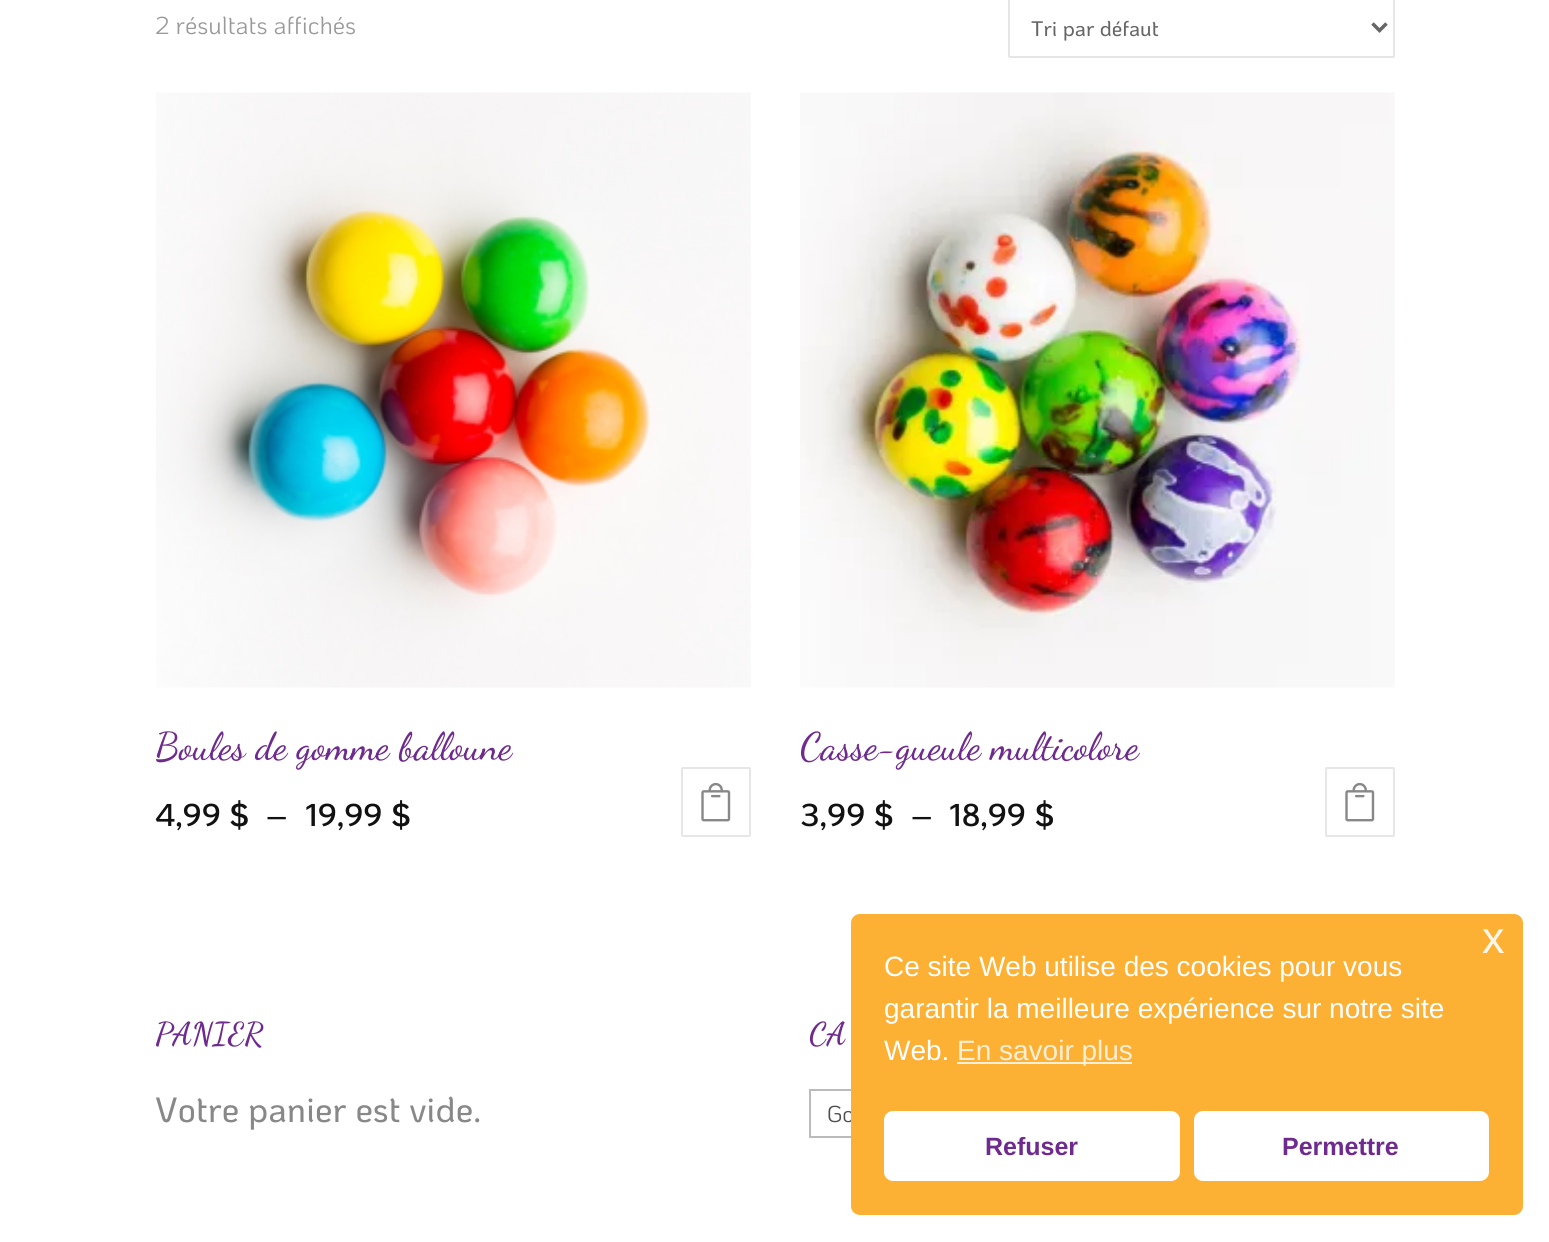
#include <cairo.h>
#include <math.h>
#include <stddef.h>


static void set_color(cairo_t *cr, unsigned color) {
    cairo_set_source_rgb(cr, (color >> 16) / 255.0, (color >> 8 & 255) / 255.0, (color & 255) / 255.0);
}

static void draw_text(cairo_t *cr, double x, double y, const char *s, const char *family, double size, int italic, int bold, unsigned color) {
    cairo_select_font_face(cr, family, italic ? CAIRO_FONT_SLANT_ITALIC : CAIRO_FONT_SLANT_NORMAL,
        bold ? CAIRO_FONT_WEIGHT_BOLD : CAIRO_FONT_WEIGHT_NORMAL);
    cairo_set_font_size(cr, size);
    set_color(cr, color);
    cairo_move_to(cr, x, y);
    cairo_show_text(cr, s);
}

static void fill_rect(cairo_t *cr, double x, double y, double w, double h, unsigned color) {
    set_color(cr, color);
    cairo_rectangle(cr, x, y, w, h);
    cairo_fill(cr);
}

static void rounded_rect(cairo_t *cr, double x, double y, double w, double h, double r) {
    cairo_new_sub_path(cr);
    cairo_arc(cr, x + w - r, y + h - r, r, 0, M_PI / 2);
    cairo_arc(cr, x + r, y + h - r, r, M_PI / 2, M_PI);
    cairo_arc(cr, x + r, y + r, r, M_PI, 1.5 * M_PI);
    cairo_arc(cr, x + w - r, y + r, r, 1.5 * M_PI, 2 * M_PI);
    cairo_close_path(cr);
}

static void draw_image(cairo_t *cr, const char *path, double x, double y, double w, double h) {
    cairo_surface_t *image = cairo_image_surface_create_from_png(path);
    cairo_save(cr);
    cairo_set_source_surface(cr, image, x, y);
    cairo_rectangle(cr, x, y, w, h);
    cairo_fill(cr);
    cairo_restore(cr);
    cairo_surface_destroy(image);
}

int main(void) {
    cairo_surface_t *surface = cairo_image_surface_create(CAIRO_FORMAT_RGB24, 1549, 1242);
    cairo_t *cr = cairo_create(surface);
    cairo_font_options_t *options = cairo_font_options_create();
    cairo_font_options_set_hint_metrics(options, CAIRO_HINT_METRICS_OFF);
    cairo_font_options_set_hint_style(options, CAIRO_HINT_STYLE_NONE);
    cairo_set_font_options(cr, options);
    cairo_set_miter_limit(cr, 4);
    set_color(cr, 0xFFFFFF);
    cairo_paint(cr);
    draw_text(cr, 155, 34, "2 résultats affichés", "KoHo", 24.5, 0, 0, 0x999999);
    rounded_rect(cr, 1009, -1, 385, 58, 1);
    set_color(cr, 0xE6E6E6);
    cairo_stroke(cr);
    cairo_new_path(cr);
    cairo_move_to(cr, 1372.5, 23.5);
    cairo_line_to(cr, 1379.5, 30.5);
    cairo_line_to(cr, 1386.5, 23.5);
    set_color(cr, 0x666666);
    cairo_set_line_width(cr, 3.5);
    cairo_stroke(cr);
    draw_text(cr, 1031, 36, "Tri par défaut", "KoHo Medium", 21, 0, 0, 0x666666);
    draw_image(cr, "assets/img1.png", 156, 92, 595, 596);
    draw_text(cr, 155, 759, "Boules de gomme balloune", "Dancing Script Medium", 38.5, 0, 0, 0x6F2A8E);
    draw_text(cr, 155, 826, "4,99 $", "KoHo SemiBold", 31.5, 0, 0, 0x111111);
    draw_text(cr, 266, 826, "–", "KoHo SemiBold", 31.5, 0, 0, 0x111111);
    draw_text(cr, 305, 826, "19,99 $", "KoHo SemiBold", 31.5, 0, 0, 0x111111);
    rounded_rect(cr, 682, 768, 68, 68, 1);
    set_color(cr, 0xE6E6E6);
    cairo_set_line_width(cr, 2);
    cairo_stroke(cr);
    draw_image(cr, "assets/img2.png", 701, 782, 30, 40);
    draw_image(cr, "assets/img3.png", 800, 92, 595, 596);
    draw_text(cr, 800, 759, "Casse-gueule multicolore", "Dancing Script Medium", 38.5, 0, 0, 0x6F2A8E);
    draw_text(cr, 800, 826, "3,99 $", "KoHo SemiBold", 31.5, 0, 0, 0x111111);
    draw_text(cr, 911, 826, "–", "KoHo SemiBold", 31.5, 0, 0, 0x111111);
    draw_text(cr, 949, 826, "18,99 $", "KoHo SemiBold", 31.5, 0, 0, 0x111111);
    rounded_rect(cr, 1326, 768, 68, 68, 1);
    set_color(cr, 0xE6E6E6);
    cairo_stroke(cr);
    draw_image(cr, "assets/img2.png", 1345, 782, 30, 40);
    draw_text(cr, 155, 1044, "PANIER", "Dancing Script SemiBold", 31.5, 0, 0, 0x6F2A8E);
    draw_text(cr, 155, 1122, "Votre panier est vide.", "KoHo Medium", 35, 0, 0, 0x888888);
    draw_text(cr, 809, 1044, "CA", "Dancing Script SemiBold", 31.5, 0, 0, 0x6F2A8E);
    cairo_rectangle(cr, 810, 1090, 584, 47);
    set_color(cr, 0xBBBBBB);
    cairo_stroke(cr);
    draw_text(cr, 827, 1122, "Go", "KoHo", 23, 0, 0, 0x4E4E4E);
    set_color(cr, 0xFCB034);
    rounded_rect(cr, 851, 914, 672, 301, 9);
    cairo_fill(cr);
    draw_text(cr, 1482, 953, "x", "Liberation Sans", 45, 0, 0, 0xFFF7EB);
    draw_text(cr, 884, 976, "Ce site Web utilise des cookies pour vous", "Liberation Sans", 28, 0, 0, 0xFFFFFF);
    draw_text(cr, 884, 1018, "garantir la meilleure expérience sur notre site", "Liberation Sans", 28, 0, 0, 0xFFFFFF);
    draw_text(cr, 884, 1060, "Web.", "Liberation Sans", 28, 0, 0, 0xFFFFFF);
    fill_rect(cr, 957, 1062, 175, 2, 0xFEEFD6);
    draw_text(cr, 957, 1060, "En savoir plus", "Liberation Sans", 28, 0, 0, 0xFEEFD6);
    set_color(cr, 0xFFFFFF);
    rounded_rect(cr, 884, 1111, 296, 70, 9);
    cairo_fill(cr);
    draw_text(cr, 985, 1155, "Refuser", "Liberation Sans", 25, 0, 1, 0x6F2A8E);
    set_color(cr, 0xFFFFFF);
    rounded_rect(cr, 1194, 1111, 295, 70, 9);
    cairo_fill(cr);
    draw_text(cr, 1282, 1155, "Permettre", "Liberation Sans", 25, 0, 1, 0x6F2A8E);
    cairo_surface_write_to_png(surface, "output.png");
    cairo_font_options_destroy(options);
    cairo_destroy(cr);
    cairo_surface_destroy(surface);
    return 0;
}
